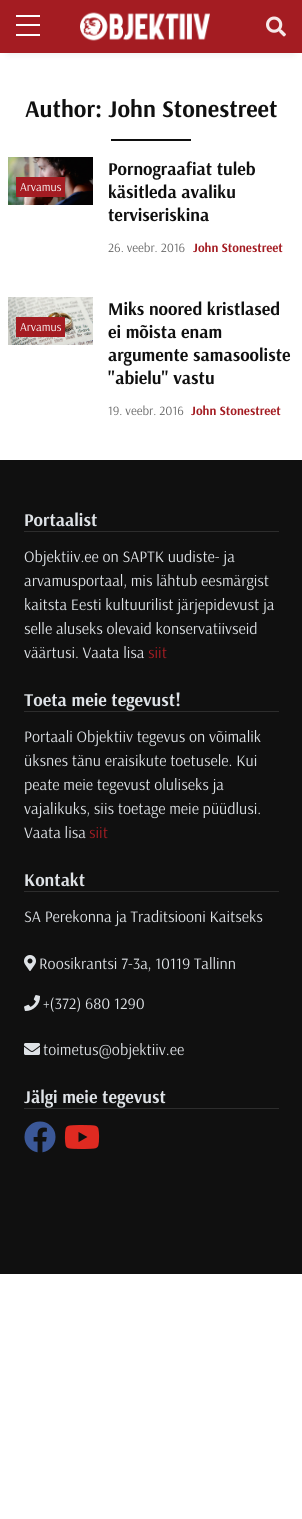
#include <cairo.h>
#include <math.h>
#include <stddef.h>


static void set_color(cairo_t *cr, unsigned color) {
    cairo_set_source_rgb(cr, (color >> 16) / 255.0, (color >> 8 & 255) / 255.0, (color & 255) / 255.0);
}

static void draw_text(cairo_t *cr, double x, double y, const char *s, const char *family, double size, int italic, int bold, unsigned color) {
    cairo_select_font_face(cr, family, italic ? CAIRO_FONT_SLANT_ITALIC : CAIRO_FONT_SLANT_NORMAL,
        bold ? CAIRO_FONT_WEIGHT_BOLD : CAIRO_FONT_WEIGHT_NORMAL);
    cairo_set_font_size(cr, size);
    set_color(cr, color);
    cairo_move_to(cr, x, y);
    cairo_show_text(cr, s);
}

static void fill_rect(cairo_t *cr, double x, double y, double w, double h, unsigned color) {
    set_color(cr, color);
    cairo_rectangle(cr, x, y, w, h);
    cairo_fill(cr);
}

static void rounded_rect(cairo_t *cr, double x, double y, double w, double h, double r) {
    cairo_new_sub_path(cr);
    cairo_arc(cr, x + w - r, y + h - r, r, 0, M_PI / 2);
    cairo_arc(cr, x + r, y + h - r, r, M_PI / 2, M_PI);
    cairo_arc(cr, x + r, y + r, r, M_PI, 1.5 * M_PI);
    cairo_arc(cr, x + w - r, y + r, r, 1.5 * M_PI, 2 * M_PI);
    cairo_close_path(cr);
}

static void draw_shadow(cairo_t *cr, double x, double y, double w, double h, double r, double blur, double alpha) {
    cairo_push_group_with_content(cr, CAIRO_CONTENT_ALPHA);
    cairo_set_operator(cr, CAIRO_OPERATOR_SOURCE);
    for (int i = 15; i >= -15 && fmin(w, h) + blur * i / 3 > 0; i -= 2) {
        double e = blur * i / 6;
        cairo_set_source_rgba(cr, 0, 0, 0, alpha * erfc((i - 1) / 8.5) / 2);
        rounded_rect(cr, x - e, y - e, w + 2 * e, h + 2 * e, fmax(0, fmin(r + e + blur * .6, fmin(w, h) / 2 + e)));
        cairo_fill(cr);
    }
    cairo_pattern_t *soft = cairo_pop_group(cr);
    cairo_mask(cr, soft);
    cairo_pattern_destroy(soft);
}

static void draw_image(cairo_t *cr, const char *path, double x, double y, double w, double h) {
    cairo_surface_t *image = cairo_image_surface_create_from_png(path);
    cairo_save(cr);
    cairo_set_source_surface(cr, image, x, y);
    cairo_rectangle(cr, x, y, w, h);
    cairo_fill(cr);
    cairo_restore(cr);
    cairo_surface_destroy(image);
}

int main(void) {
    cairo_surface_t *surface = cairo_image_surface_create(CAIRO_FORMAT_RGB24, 302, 1519);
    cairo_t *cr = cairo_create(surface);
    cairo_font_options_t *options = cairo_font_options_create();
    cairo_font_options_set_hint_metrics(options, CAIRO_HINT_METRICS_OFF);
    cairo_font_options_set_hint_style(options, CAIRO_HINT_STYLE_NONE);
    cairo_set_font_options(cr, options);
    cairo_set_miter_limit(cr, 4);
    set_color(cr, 0xFFFFFF);
    cairo_paint(cr);
    set_color(cr, 0x000000);
    draw_shadow(cr, 8, 16, 286, 37, 0, 4, 0.1);
    fill_rect(cr, 0, 0, 302, 53, 0xA41C22);
    fill_rect(cr, 16, 15, 24, 2, 0xFFFFFF);
    fill_rect(cr, 16, 24, 24, 2, 0xFFFFFF);
    fill_rect(cr, 16, 34, 24, 2, 0xFFFFFF);
    draw_image(cr, "assets/img1.png", 80, 12, 130, 29);
    draw_image(cr, "assets/img2.png", 266, 16, 20, 21);
    draw_text(cr, 25, 117, "Author: John Stonestreet", "Arsenal", 24, 0, 1, 0x101010);
    fill_rect(cr, 111, 140, 80, 1, 0x101010);
    fill_rect(cr, 111, 139, 80, 1, 0x0E0E0E);
    draw_image(cr, "assets/img3.png", 8, 157, 85, 48);
    fill_rect(cr, 16, 177, 49, 20, 0xA41C22);
    draw_text(cr, 20, 191, "Arvamus", "Arsenal", 12, 0, 0, 0xFFFFFF);
    draw_text(cr, 108, 175, "Pornograafiat tuleb", "Arsenal", 18, 0, 1, 0x101010);
    draw_text(cr, 108, 198, "käsitleda avaliku", "Arsenal", 18, 0, 1, 0x101010);
    draw_text(cr, 108, 221, "terviseriskina", "Arsenal", 18, 0, 1, 0x101010);
    draw_text(cr, 108, 252, "26. veebr. 2016", "Arsenal", 12.75, 0, 0, 0x666666);
    draw_text(cr, 193, 252, "John Stonestreet", "Arsenal", 12.75, 0, 1, 0xA41C22);
    draw_image(cr, "assets/img4.png", 8, 297, 85, 48);
    fill_rect(cr, 16, 317, 49, 20, 0xA41C22);
    draw_text(cr, 20, 331, "Arvamus", "Arsenal", 12, 0, 0, 0xFFFFFF);
    draw_text(cr, 108, 315, "Miks noored kristlased", "Arsenal", 18, 0, 1, 0x101010);
    draw_text(cr, 108, 338, "ei mõista enam", "Arsenal", 18, 0, 1, 0x101010);
    draw_text(cr, 108, 361, "argumente samasooliste", "Arsenal", 18, 0, 1, 0x101010);
    draw_text(cr, 108, 384, "\"abielu\" vastu", "Arsenal", 18, 0, 1, 0x101010);
    draw_text(cr, 108, 415, "19. veebr. 2016", "Arsenal", 12.75, 0, 0, 0x666666);
    draw_text(cr, 191, 415, "John Stonestreet", "Arsenal", 12.75, 0, 1, 0xA41C22);
    fill_rect(cr, 0, 460, 302, 814, 0x101010);
    fill_rect(cr, 24, 531, 255, 1, 0x2D2D2D);
    draw_text(cr, 24, 526, "Portaalist", "Arsenal", 18, 0, 1, 0xDEE2E6);
    draw_text(cr, 24, 562, "Objektiiv.ee on SAPTK uudiste- ja", "Arsenal", 16, 0, 0, 0xDEE2E6);
    draw_text(cr, 24, 586, "arvamusportaal, mis lähtub eesmärgist", "Arsenal", 16, 0, 0, 0xDEE2E6);
    draw_text(cr, 24, 610, "kaitsta Eesti kultuurilist järjepidevust ja", "Arsenal", 16, 0, 0, 0xDEE2E6);
    draw_text(cr, 24, 634, "selle aluseks olevaid konservatiivseid", "Arsenal", 16, 0, 0, 0xDEE2E6);
    draw_text(cr, 24, 658, "väärtusi. Vaata lisa", "Arsenal", 16, 0, 0, 0xDEE2E6);
    draw_text(cr, 148, 658, "siit", "Arsenal", 16, 0, 0, 0xA41C22);
    fill_rect(cr, 24, 711, 255, 1, 0x2D2D2D);
    draw_text(cr, 24, 706, "Toeta meie tegevust!", "Arsenal", 18, 0, 1, 0xDEE2E6);
    draw_text(cr, 24, 742, "Portaali Objektiiv tegevus on võimalik", "Arsenal", 16, 0, 0, 0xDEE2E6);
    draw_text(cr, 24, 766, "üksnes tänu eraisikute toetusele. Kui", "Arsenal", 16, 0, 0, 0xDEE2E6);
    draw_text(cr, 24, 790, "peate meie tegevust oluliseks ja", "Arsenal", 16, 0, 0, 0xDEE2E6);
    draw_text(cr, 24, 814, "vajalikuks, siis toetage meie püüdlusi.", "Arsenal", 16, 0, 0, 0xDEE2E6);
    draw_text(cr, 24, 838, "Vaata lisa", "Arsenal", 16, 0, 0, 0xDEE2E6);
    draw_text(cr, 89, 838, "siit", "Arsenal", 16, 0, 0, 0xA41C22);
    fill_rect(cr, 24, 891, 255, 1, 0x2D2D2D);
    draw_text(cr, 24, 886, "Kontakt", "Arsenal", 18, 0, 1, 0xDEE2E6);
    draw_text(cr, 24, 922, "SA Perekonna ja Traditsiooni Kaitseks", "Arsenal", 16, 0, 0, 0xDEE2E6);
    draw_image(cr, "assets/img5.png", 24, 955, 12, 16);
    draw_text(cr, 39, 969, "Roosikrantsi 7-3a, 10119 Tallinn", "Arsenal", 16, 0, 0, 0xDEE2E6);
    draw_image(cr, "assets/img6.png", 24, 995, 16, 16);
    draw_text(cr, 43, 1009, "+(372) 680 1290", "Arsenal", 16, 0, 0, 0xDEE2E6);
    draw_image(cr, "assets/img7.png", 24, 1043, 16, 12);
    draw_text(cr, 43, 1055, "toimetus@objektiiv.ee", "Arsenal", 16, 0, 0, 0xDEE2E6);
    fill_rect(cr, 24, 1108, 255, 1, 0x2D2D2D);
    draw_text(cr, 24, 1103, "Jälgi meie tegevust", "Arsenal", 18, 0, 1, 0xDEE2E6);
    draw_image(cr, "assets/img8.png", 24, 1121, 32, 32);
    draw_image(cr, "assets/img9.png", 64, 1125, 36, 24);
    cairo_surface_write_to_png(surface, "output.png");
    cairo_font_options_destroy(options);
    cairo_destroy(cr);
    cairo_surface_destroy(surface);
    return 0;
}
